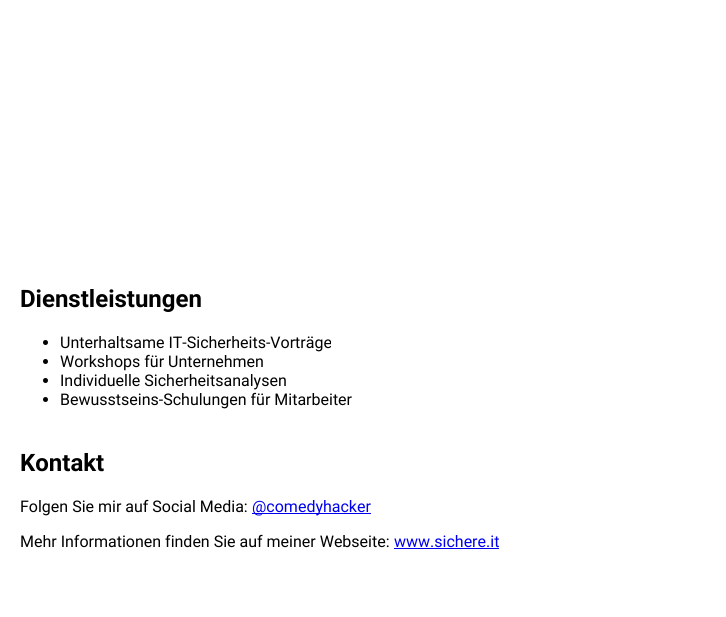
#include <cairo.h>
#include <math.h>
#include <stddef.h>


static void set_color(cairo_t *cr, unsigned color) {
    cairo_set_source_rgb(cr, (color >> 16) / 255.0, (color >> 8 & 255) / 255.0, (color & 255) / 255.0);
}

static void draw_text(cairo_t *cr, double x, double y, const char *s, const char *family, double size, int italic, int bold, unsigned color) {
    cairo_select_font_face(cr, family, italic ? CAIRO_FONT_SLANT_ITALIC : CAIRO_FONT_SLANT_NORMAL,
        bold ? CAIRO_FONT_WEIGHT_BOLD : CAIRO_FONT_WEIGHT_NORMAL);
    cairo_set_font_size(cr, size);
    set_color(cr, color);
    cairo_move_to(cr, x, y);
    cairo_show_text(cr, s);
}

static void fill_rect(cairo_t *cr, double x, double y, double w, double h, unsigned color) {
    set_color(cr, color);
    cairo_rectangle(cr, x, y, w, h);
    cairo_fill(cr);
}

int main(void) {
    cairo_surface_t *surface = cairo_image_surface_create(CAIRO_FORMAT_RGB24, 726, 617);
    cairo_t *cr = cairo_create(surface);
    cairo_font_options_t *options = cairo_font_options_create();
    cairo_font_options_set_hint_metrics(options, CAIRO_HINT_METRICS_OFF);
    cairo_font_options_set_hint_style(options, CAIRO_HINT_STYLE_NONE);
    cairo_set_font_options(cr, options);
    cairo_set_miter_limit(cr, 4);
    set_color(cr, 0xFFFFFF);
    cairo_paint(cr);
    draw_text(cr, 20, 307, "Dienstleistungen", "Roboto", 24, 0, 1, 0x000000);
    cairo_new_path(cr);
    cairo_arc(cr, 45.5, 342.5, 2.5, 0, 2 * M_PI);
    cairo_fill(cr);
    draw_text(cr, 60, 348, "Unterhaltsame IT-Sicherheits-Vorträge", "Roboto", 16, 0, 0, 0x000000);
    cairo_new_path(cr);
    cairo_arc(cr, 45.5, 361.5, 2.5, 0, 2 * M_PI);
    cairo_fill(cr);
    draw_text(cr, 60, 367, "Workshops für Unternehmen", "Roboto", 16, 0, 0, 0x000000);
    cairo_new_path(cr);
    cairo_arc(cr, 45.5, 380.5, 2.5, 0, 2 * M_PI);
    cairo_fill(cr);
    draw_text(cr, 60, 386, "Individuelle Sicherheitsanalysen", "Roboto", 16, 0, 0, 0x000000);
    cairo_new_path(cr);
    cairo_arc(cr, 45.5, 399.5, 2.5, 0, 2 * M_PI);
    cairo_fill(cr);
    draw_text(cr, 60, 405, "Bewusstseins-Schulungen für Mitarbeiter", "Roboto", 16, 0, 0, 0x000000);
    draw_text(cr, 20, 471, "Kontakt", "Roboto", 24, 0, 1, 0x000000);
    draw_text(cr, 20, 512, "Folgen Sie mir auf Social Media:", "Roboto", 16, 0, 0, 0x000000);
    fill_rect(cr, 252, 513, 119, 1, 0x0000EE);
    draw_text(cr, 252, 512, "@comedyhacker", "Roboto", 16, 0, 0, 0x0000EE);
    draw_text(cr, 20, 547, "Mehr Informationen finden Sie auf meiner Webseite:", "Roboto", 16, 0, 0, 0x000000);
    draw_text(cr, 394, 547, "www.sichere.it", "Roboto", 16, 0, 0, 0x0000EE);
    fill_rect(cr, 394, 548, 105, 1, 0x0000EE);
    cairo_surface_write_to_png(surface, "output.png");
    cairo_font_options_destroy(options);
    cairo_destroy(cr);
    cairo_surface_destroy(surface);
    return 0;
}
